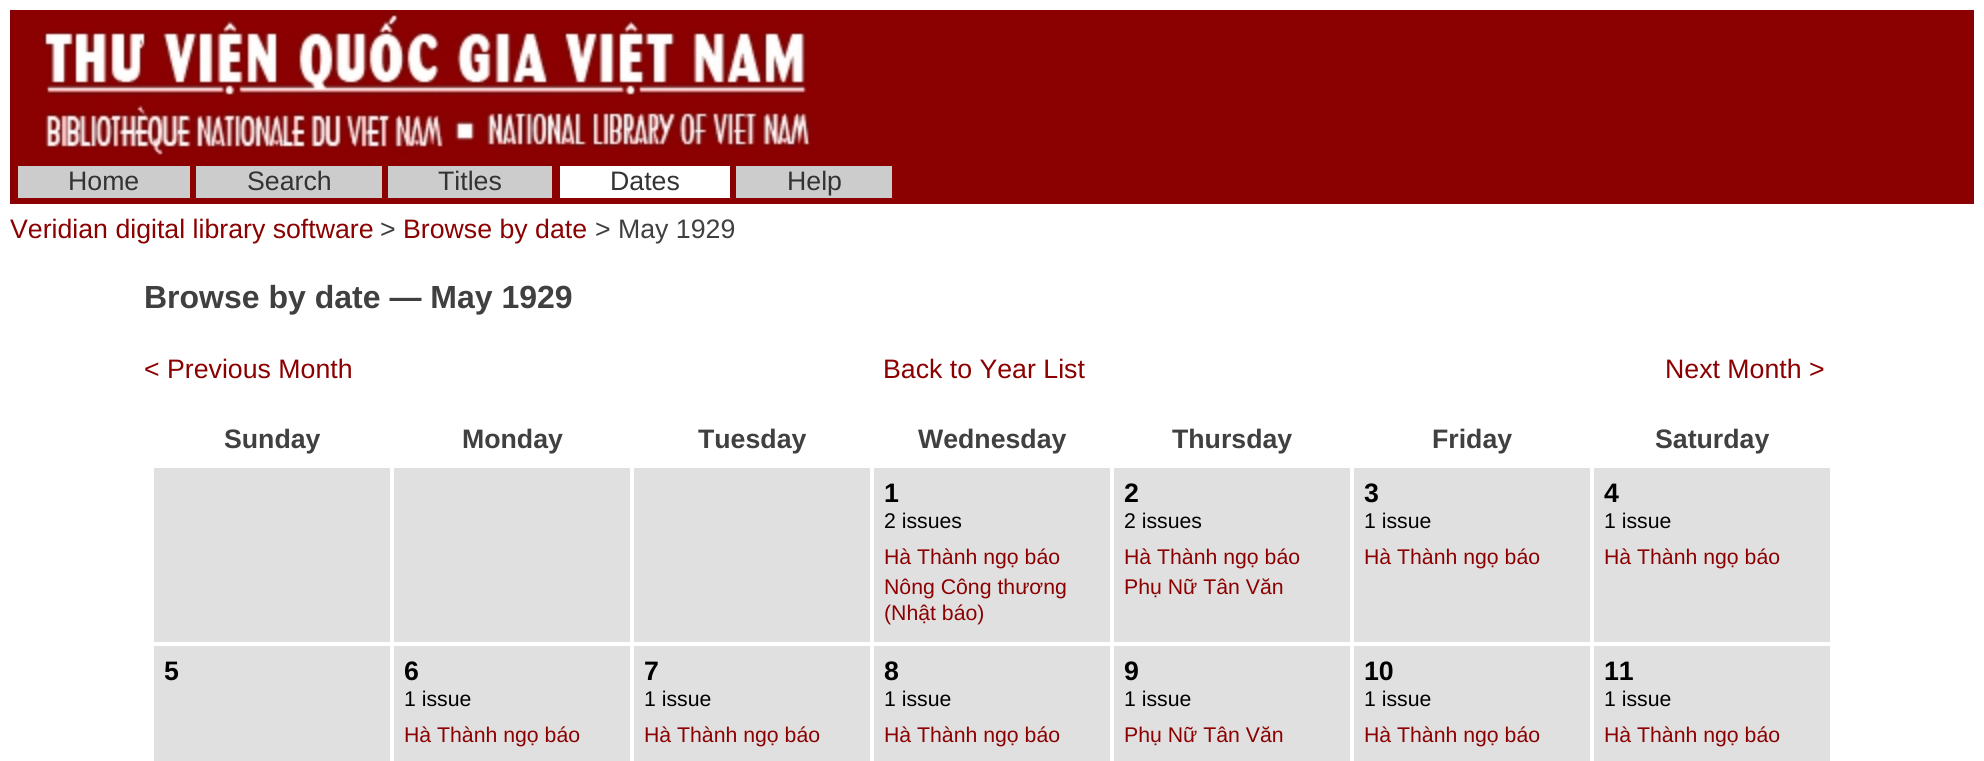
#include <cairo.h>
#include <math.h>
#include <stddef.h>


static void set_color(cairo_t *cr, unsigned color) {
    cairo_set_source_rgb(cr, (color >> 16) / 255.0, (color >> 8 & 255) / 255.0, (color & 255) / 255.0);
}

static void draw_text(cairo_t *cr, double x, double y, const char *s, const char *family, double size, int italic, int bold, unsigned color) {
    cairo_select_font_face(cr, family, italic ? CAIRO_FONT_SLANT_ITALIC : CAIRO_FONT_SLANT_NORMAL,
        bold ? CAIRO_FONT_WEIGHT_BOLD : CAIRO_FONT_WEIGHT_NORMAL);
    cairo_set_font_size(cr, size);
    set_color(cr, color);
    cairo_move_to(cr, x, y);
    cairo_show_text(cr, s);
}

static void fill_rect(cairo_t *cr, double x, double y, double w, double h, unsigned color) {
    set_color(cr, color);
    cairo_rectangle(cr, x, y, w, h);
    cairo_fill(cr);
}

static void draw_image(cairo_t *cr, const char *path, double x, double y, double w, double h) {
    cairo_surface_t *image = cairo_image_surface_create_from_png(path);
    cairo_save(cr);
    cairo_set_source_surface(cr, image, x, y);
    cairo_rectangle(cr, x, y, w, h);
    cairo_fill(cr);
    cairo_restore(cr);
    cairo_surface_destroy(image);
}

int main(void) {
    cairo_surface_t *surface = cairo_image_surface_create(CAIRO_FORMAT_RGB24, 1984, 761);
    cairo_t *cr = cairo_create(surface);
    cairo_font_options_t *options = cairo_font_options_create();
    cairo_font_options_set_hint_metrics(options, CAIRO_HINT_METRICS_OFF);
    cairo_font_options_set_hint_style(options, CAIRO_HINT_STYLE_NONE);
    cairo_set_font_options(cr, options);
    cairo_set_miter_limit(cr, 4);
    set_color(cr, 0xFFFFFF);
    cairo_paint(cr);
    fill_rect(cr, 10, 10, 1964, 194, 0x8B0000);
    draw_image(cr, "assets/img1.png", 42, 12, 769, 144);
    fill_rect(cr, 18, 166, 172, 32, 0xCCCCCC);
    draw_text(cr, 68, 190, "Home", "Liberation Sans", 26.7, 0, 0, 0x333333);
    fill_rect(cr, 196, 166, 186, 32, 0xCCCCCC);
    draw_text(cr, 247, 190, "Search", "Liberation Sans", 26.7, 0, 0, 0x333333);
    fill_rect(cr, 388, 166, 164, 32, 0xCCCCCC);
    draw_text(cr, 438, 190, "Titles", "Liberation Sans", 26.7, 0, 0, 0x333333);
    fill_rect(cr, 560, 166, 170, 32, 0xFFFFFF);
    draw_text(cr, 610, 190, "Dates", "Liberation Sans", 26.7, 0, 0, 0x333333);
    fill_rect(cr, 736, 166, 156, 32, 0xCCCCCC);
    draw_text(cr, 787, 190, "Help", "Liberation Sans", 26.7, 0, 0, 0x333333);
    draw_text(cr, 10, 238, "Veridian digital library software", "Liberation Sans", 26.7, 0, 0, 0x8B0000);
    draw_text(cr, 380, 238, ">", "Liberation Sans", 26.7, 0, 0, 0x404040);
    draw_text(cr, 403, 238, "Browse by date", "Liberation Sans", 26.7, 0, 0, 0x8B0000);
    draw_text(cr, 595, 238, "> May 1929", "Liberation Sans", 26.7, 0, 0, 0x404040);
    draw_text(cr, 144, 308, "Browse by date — May 1929", "Liberation Sans", 32, 0, 1, 0x404040);
    draw_text(cr, 144, 378, "< Previous Month", "Liberation Sans", 26.7, 0, 0, 0x8B0000);
    draw_text(cr, 883, 378, "Back to Year List", "Liberation Sans", 26.7, 0, 0, 0x8B0000);
    draw_text(cr, 1665, 378, "Next Month >", "Liberation Sans", 26.7, 0, 0, 0x8B0000);
    draw_text(cr, 224, 448, "Sunday", "Liberation Sans", 26.7, 0, 1, 0x404040);
    draw_text(cr, 462, 448, "Monday", "Liberation Sans", 26.7, 0, 1, 0x404040);
    draw_text(cr, 698, 448, "Tuesday", "Liberation Sans", 26.7, 0, 1, 0x404040);
    draw_text(cr, 918, 448, "Wednesday", "Liberation Sans", 26.7, 0, 1, 0x404040);
    draw_text(cr, 1172, 448, "Thursday", "Liberation Sans", 26.7, 0, 1, 0x404040);
    draw_text(cr, 1432, 448, "Friday", "Liberation Sans", 26.7, 0, 1, 0x404040);
    draw_text(cr, 1655, 448, "Saturday", "Liberation Sans", 26.7, 0, 1, 0x404040);
    fill_rect(cr, 154, 468, 1676, 174, 0xE0E0E0);
    cairo_rectangle(cr, 153, 467, 238, 176);
    set_color(cr, 0xFFFFFF);
    cairo_stroke(cr);
    cairo_rectangle(cr, 393, 467, 238, 176);
    cairo_stroke(cr);
    cairo_rectangle(cr, 633, 467, 238, 176);
    cairo_stroke(cr);
    cairo_rectangle(cr, 873, 467, 238, 176);
    cairo_stroke(cr);
    draw_text(cr, 884, 502, "1", "Liberation Sans", 26.7, 0, 1, 0x000000);
    draw_text(cr, 884, 528, "2 issues", "Liberation Sans", 21.25, 0, 0, 0x000000);
    draw_text(cr, 884, 564, "Hà Thành ngọ báo", "Liberation Sans", 21.25, 0, 0, 0x8B0000);
    draw_text(cr, 884, 594, "Nông Công thương", "Liberation Sans", 21.25, 0, 0, 0x8B0000);
    draw_text(cr, 884, 620, "(Nhật báo)", "Liberation Sans", 21.25, 0, 0, 0x8B0000);
    cairo_rectangle(cr, 1113, 467, 238, 176);
    set_color(cr, 0xFFFFFF);
    cairo_stroke(cr);
    draw_text(cr, 1124, 502, "2", "Liberation Sans", 26.7, 0, 1, 0x000000);
    draw_text(cr, 1124, 528, "2 issues", "Liberation Sans", 21.25, 0, 0, 0x000000);
    draw_text(cr, 1124, 564, "Hà Thành ngọ báo", "Liberation Sans", 21.25, 0, 0, 0x8B0000);
    draw_text(cr, 1124, 594, "Phụ Nữ Tân Văn", "Liberation Sans", 21.25, 0, 0, 0x8B0000);
    cairo_rectangle(cr, 1353, 467, 238, 176);
    set_color(cr, 0xFFFFFF);
    cairo_stroke(cr);
    draw_text(cr, 1364, 502, "3", "Liberation Sans", 26.7, 0, 1, 0x000000);
    draw_text(cr, 1364, 528, "1 issue", "Liberation Sans", 21.25, 0, 0, 0x000000);
    draw_text(cr, 1364, 564, "Hà Thành ngọ báo", "Liberation Sans", 21.25, 0, 0, 0x8B0000);
    cairo_rectangle(cr, 1593, 467, 238, 176);
    set_color(cr, 0xFFFFFF);
    cairo_stroke(cr);
    draw_text(cr, 1604, 502, "4", "Liberation Sans", 26.7, 0, 1, 0x000000);
    draw_text(cr, 1604, 528, "1 issue", "Liberation Sans", 21.25, 0, 0, 0x000000);
    draw_text(cr, 1604, 564, "Hà Thành ngọ báo", "Liberation Sans", 21.25, 0, 0, 0x8B0000);
    fill_rect(cr, 154, 646, 1676, 115, 0xE0E0E0);
    cairo_rectangle(cr, 153, 645, 238, 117);
    set_color(cr, 0xFFFFFF);
    cairo_stroke(cr);
    draw_text(cr, 164, 680, "5", "Liberation Sans", 26.7, 0, 1, 0x000000);
    cairo_rectangle(cr, 393, 645, 238, 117);
    set_color(cr, 0xFFFFFF);
    cairo_stroke(cr);
    draw_text(cr, 404, 680, "6", "Liberation Sans", 26.7, 0, 1, 0x000000);
    draw_text(cr, 404, 706, "1 issue", "Liberation Sans", 21.25, 0, 0, 0x000000);
    draw_text(cr, 404, 742, "Hà Thành ngọ báo", "Liberation Sans", 21.25, 0, 0, 0x8B0000);
    cairo_rectangle(cr, 633, 645, 238, 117);
    set_color(cr, 0xFFFFFF);
    cairo_stroke(cr);
    draw_text(cr, 644, 680, "7", "Liberation Sans", 26.7, 0, 1, 0x000000);
    draw_text(cr, 644, 706, "1 issue", "Liberation Sans", 21.25, 0, 0, 0x000000);
    draw_text(cr, 644, 742, "Hà Thành ngọ báo", "Liberation Sans", 21.25, 0, 0, 0x8B0000);
    cairo_rectangle(cr, 873, 645, 238, 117);
    set_color(cr, 0xFFFFFF);
    cairo_stroke(cr);
    draw_text(cr, 884, 680, "8", "Liberation Sans", 26.7, 0, 1, 0x000000);
    draw_text(cr, 884, 706, "1 issue", "Liberation Sans", 21.25, 0, 0, 0x000000);
    draw_text(cr, 884, 742, "Hà Thành ngọ báo", "Liberation Sans", 21.25, 0, 0, 0x8B0000);
    cairo_rectangle(cr, 1113, 645, 238, 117);
    set_color(cr, 0xFFFFFF);
    cairo_stroke(cr);
    draw_text(cr, 1124, 680, "9", "Liberation Sans", 26.7, 0, 1, 0x000000);
    draw_text(cr, 1124, 706, "1 issue", "Liberation Sans", 21.25, 0, 0, 0x000000);
    draw_text(cr, 1124, 742, "Phụ Nữ Tân Văn", "Liberation Sans", 21.25, 0, 0, 0x8B0000);
    cairo_rectangle(cr, 1353, 645, 238, 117);
    set_color(cr, 0xFFFFFF);
    cairo_stroke(cr);
    draw_text(cr, 1364, 680, "10", "Liberation Sans", 26.7, 0, 1, 0x000000);
    draw_text(cr, 1364, 706, "1 issue", "Liberation Sans", 21.25, 0, 0, 0x000000);
    draw_text(cr, 1364, 742, "Hà Thành ngọ báo", "Liberation Sans", 21.25, 0, 0, 0x8B0000);
    cairo_rectangle(cr, 1593, 645, 238, 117);
    set_color(cr, 0xFFFFFF);
    cairo_stroke(cr);
    draw_text(cr, 1604, 680, "11", "Liberation Sans", 26.7, 0, 1, 0x000000);
    draw_text(cr, 1604, 706, "1 issue", "Liberation Sans", 21.25, 0, 0, 0x000000);
    draw_text(cr, 1604, 742, "Hà Thành ngọ báo", "Liberation Sans", 21.25, 0, 0, 0x8B0000);
    cairo_surface_write_to_png(surface, "output.png");
    cairo_font_options_destroy(options);
    cairo_destroy(cr);
    cairo_surface_destroy(surface);
    return 0;
}
